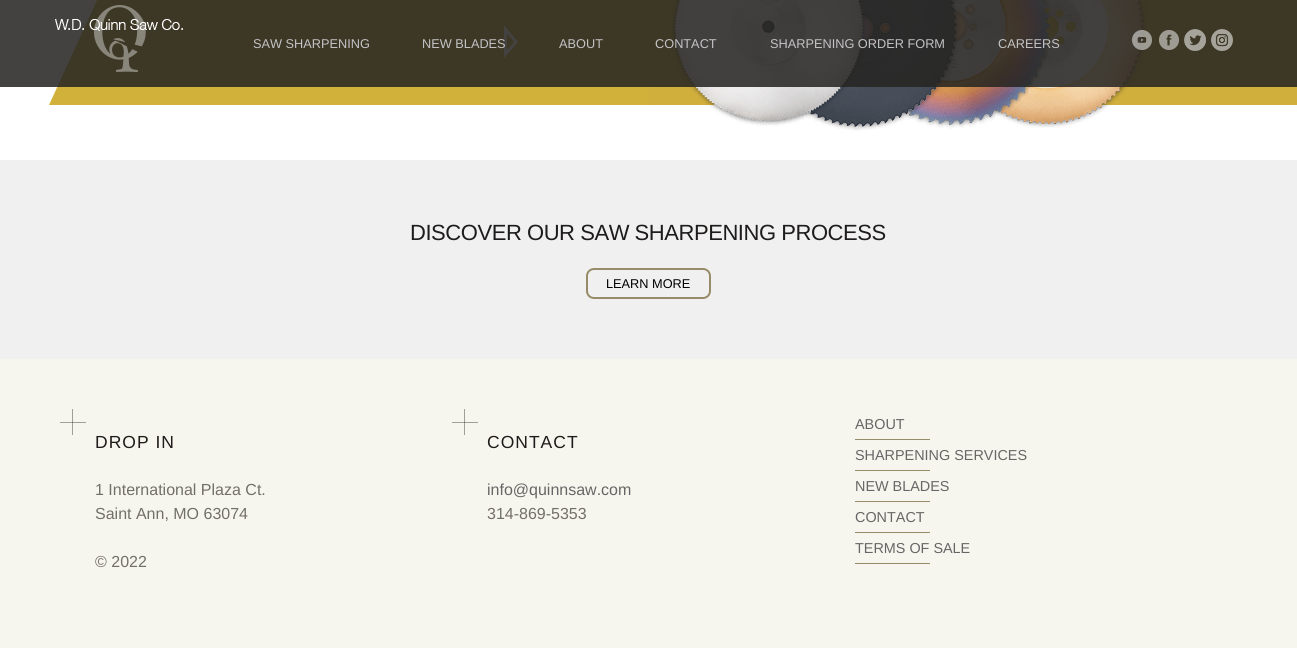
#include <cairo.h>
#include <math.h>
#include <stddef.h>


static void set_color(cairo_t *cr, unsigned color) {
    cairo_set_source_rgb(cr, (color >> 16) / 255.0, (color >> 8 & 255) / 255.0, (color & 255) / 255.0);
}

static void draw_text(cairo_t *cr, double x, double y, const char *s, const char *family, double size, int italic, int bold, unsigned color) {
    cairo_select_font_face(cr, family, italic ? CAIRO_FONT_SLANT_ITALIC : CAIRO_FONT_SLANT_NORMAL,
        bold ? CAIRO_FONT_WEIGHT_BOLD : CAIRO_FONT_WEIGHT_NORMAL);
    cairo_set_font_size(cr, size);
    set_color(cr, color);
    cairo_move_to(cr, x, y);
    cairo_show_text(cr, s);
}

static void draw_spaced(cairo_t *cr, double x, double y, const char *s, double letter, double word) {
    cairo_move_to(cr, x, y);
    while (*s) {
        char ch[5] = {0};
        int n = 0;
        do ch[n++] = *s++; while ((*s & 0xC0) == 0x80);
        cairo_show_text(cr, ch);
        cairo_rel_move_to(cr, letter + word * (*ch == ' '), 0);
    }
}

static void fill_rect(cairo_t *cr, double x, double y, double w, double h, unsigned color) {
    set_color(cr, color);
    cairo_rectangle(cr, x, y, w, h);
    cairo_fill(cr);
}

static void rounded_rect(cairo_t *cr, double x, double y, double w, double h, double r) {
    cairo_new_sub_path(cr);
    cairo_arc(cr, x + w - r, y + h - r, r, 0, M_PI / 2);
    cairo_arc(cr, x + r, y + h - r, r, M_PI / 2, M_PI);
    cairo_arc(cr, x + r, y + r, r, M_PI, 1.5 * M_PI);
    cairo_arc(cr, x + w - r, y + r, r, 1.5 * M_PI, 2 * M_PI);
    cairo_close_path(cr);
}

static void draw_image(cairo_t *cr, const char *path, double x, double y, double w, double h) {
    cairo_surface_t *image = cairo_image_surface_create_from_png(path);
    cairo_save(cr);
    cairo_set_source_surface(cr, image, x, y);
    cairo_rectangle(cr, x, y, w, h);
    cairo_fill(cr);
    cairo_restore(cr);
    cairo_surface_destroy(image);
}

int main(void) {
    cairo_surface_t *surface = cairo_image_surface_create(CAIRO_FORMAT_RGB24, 1297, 648);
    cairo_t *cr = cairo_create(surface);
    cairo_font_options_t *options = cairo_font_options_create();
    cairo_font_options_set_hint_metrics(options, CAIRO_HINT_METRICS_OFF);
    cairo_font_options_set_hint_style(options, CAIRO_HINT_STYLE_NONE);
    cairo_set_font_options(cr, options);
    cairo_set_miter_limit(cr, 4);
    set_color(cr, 0xFFFFFF);
    cairo_paint(cr);
    fill_rect(cr, 649, 0, 648, 105, 0xD0AF3D);
    draw_image(cr, "assets/img6.png", 49, 0, 600, 105);
    draw_image(cr, "assets/img7.png", 504, 25, 14, 33);
    draw_image(cr, "assets/img8.png", 671, 0, 475, 131);
    cairo_set_source_rgba(cr, 0.149, 0.145, 0.133, 0.86);
    cairo_rectangle(cr, 0, 0, 1297, 87);
    cairo_fill(cr);
    draw_image(cr, "assets/img1.png", 55, 5, 128, 67);
    draw_image(cr, "assets/img2.png", 1132, 30, 20, 20);
    draw_image(cr, "assets/img3.png", 1159, 30, 20, 20);
    draw_image(cr, "assets/img4.png", 1184, 29, 22, 22);
    draw_image(cr, "assets/img5.png", 1211, 29, 22, 22);
    draw_text(cr, 253, 48, "SAW SHARPENING", "Liberation Sans", 12.75, 0, 0, 0xC3C3C6);
    draw_text(cr, 422, 48, "NEW BLADES", "Liberation Sans", 12.75, 0, 0, 0xC3C3C6);
    draw_text(cr, 559, 48, "ABOUT", "Liberation Sans", 12.75, 0, 0, 0xC3C3C6);
    draw_text(cr, 655, 48, "CONTACT", "Liberation Sans", 12.75, 0, 0, 0xC3C3C6);
    draw_text(cr, 770, 48, "SHARPENING ORDER FORM", "Liberation Sans", 12.75, 0, 0, 0xC3C3C6);
    draw_text(cr, 998, 48, "CAREERS", "Liberation Sans", 12.75, 0, 0, 0xC3C3C6);
    fill_rect(cr, 0, 160, 1297, 199, 0xF0F0F0);
    cairo_set_font_size(cr, 22);
    set_color(cr, 0x1E1B1B);
    draw_spaced(cr, 410, 240, "DISCOVER OUR SAW SHARPENING PROCESS", -0.45, 0);
    rounded_rect(cr, 587, 269, 123, 29, 7);
    set_color(cr, 0x978C69);
    cairo_stroke(cr);
    draw_text(cr, 606, 288, "LEARN MORE", "Liberation Sans", 12.75, 0, 0, 0x000000);
    fill_rect(cr, 0, 359, 1297, 289, 0xF7F6EE);
    draw_image(cr, "assets/img9.png", 60, 409, 26, 26);
    cairo_set_font_size(cr, 17.5);
    set_color(cr, 0x1E1B1B);
    draw_spaced(cr, 95, 448, "DROP IN", 1, 0);
    draw_text(cr, 95, 495, "1 International Plaza Ct.", "Liberation Sans", 16, 0, 0, 0x716F69);
    draw_text(cr, 95, 519, "Saint Ann, MO 63074", "Liberation Sans", 16, 0, 0, 0x716F69);
    draw_text(cr, 95, 567, "© 2022", "Liberation Sans", 16, 0, 0, 0x716F69);
    draw_image(cr, "assets/img9.png", 452, 409, 26, 26);
    cairo_set_font_size(cr, 17.5);
    set_color(cr, 0x1E1B1B);
    draw_spaced(cr, 487, 448, "CONTACT", 1, 0);
    draw_text(cr, 487, 495, "info@quinnsaw.com", "Liberation Sans", 16, 0, 0, 0x666666);
    draw_text(cr, 487, 519, "314-869-5353", "Liberation Sans", 16, 0, 0, 0x716F69);
    draw_text(cr, 855, 429, "ABOUT", "Liberation Sans", 14.4, 0, 0, 0x666666);
    fill_rect(cr, 855, 439, 75, 1, 0x978C69);
    draw_text(cr, 855, 460, "SHARPENING SERVICES", "Liberation Sans", 14.4, 0, 0, 0x666666);
    fill_rect(cr, 855, 470, 75, 1, 0x978C69);
    draw_text(cr, 855, 491, "NEW BLADES", "Liberation Sans", 14.4, 0, 0, 0x666666);
    fill_rect(cr, 855, 501, 75, 1, 0x978C69);
    draw_text(cr, 855, 522, "CONTACT", "Liberation Sans", 14.4, 0, 0, 0x666666);
    fill_rect(cr, 855, 532, 75, 1, 0x978C69);
    draw_text(cr, 855, 553, "TERMS OF SALE", "Liberation Sans", 14.4, 0, 0, 0x666666);
    fill_rect(cr, 855, 563, 75, 1, 0x978C69);
    cairo_surface_write_to_png(surface, "output.png");
    cairo_font_options_destroy(options);
    cairo_destroy(cr);
    cairo_surface_destroy(surface);
    return 0;
}
